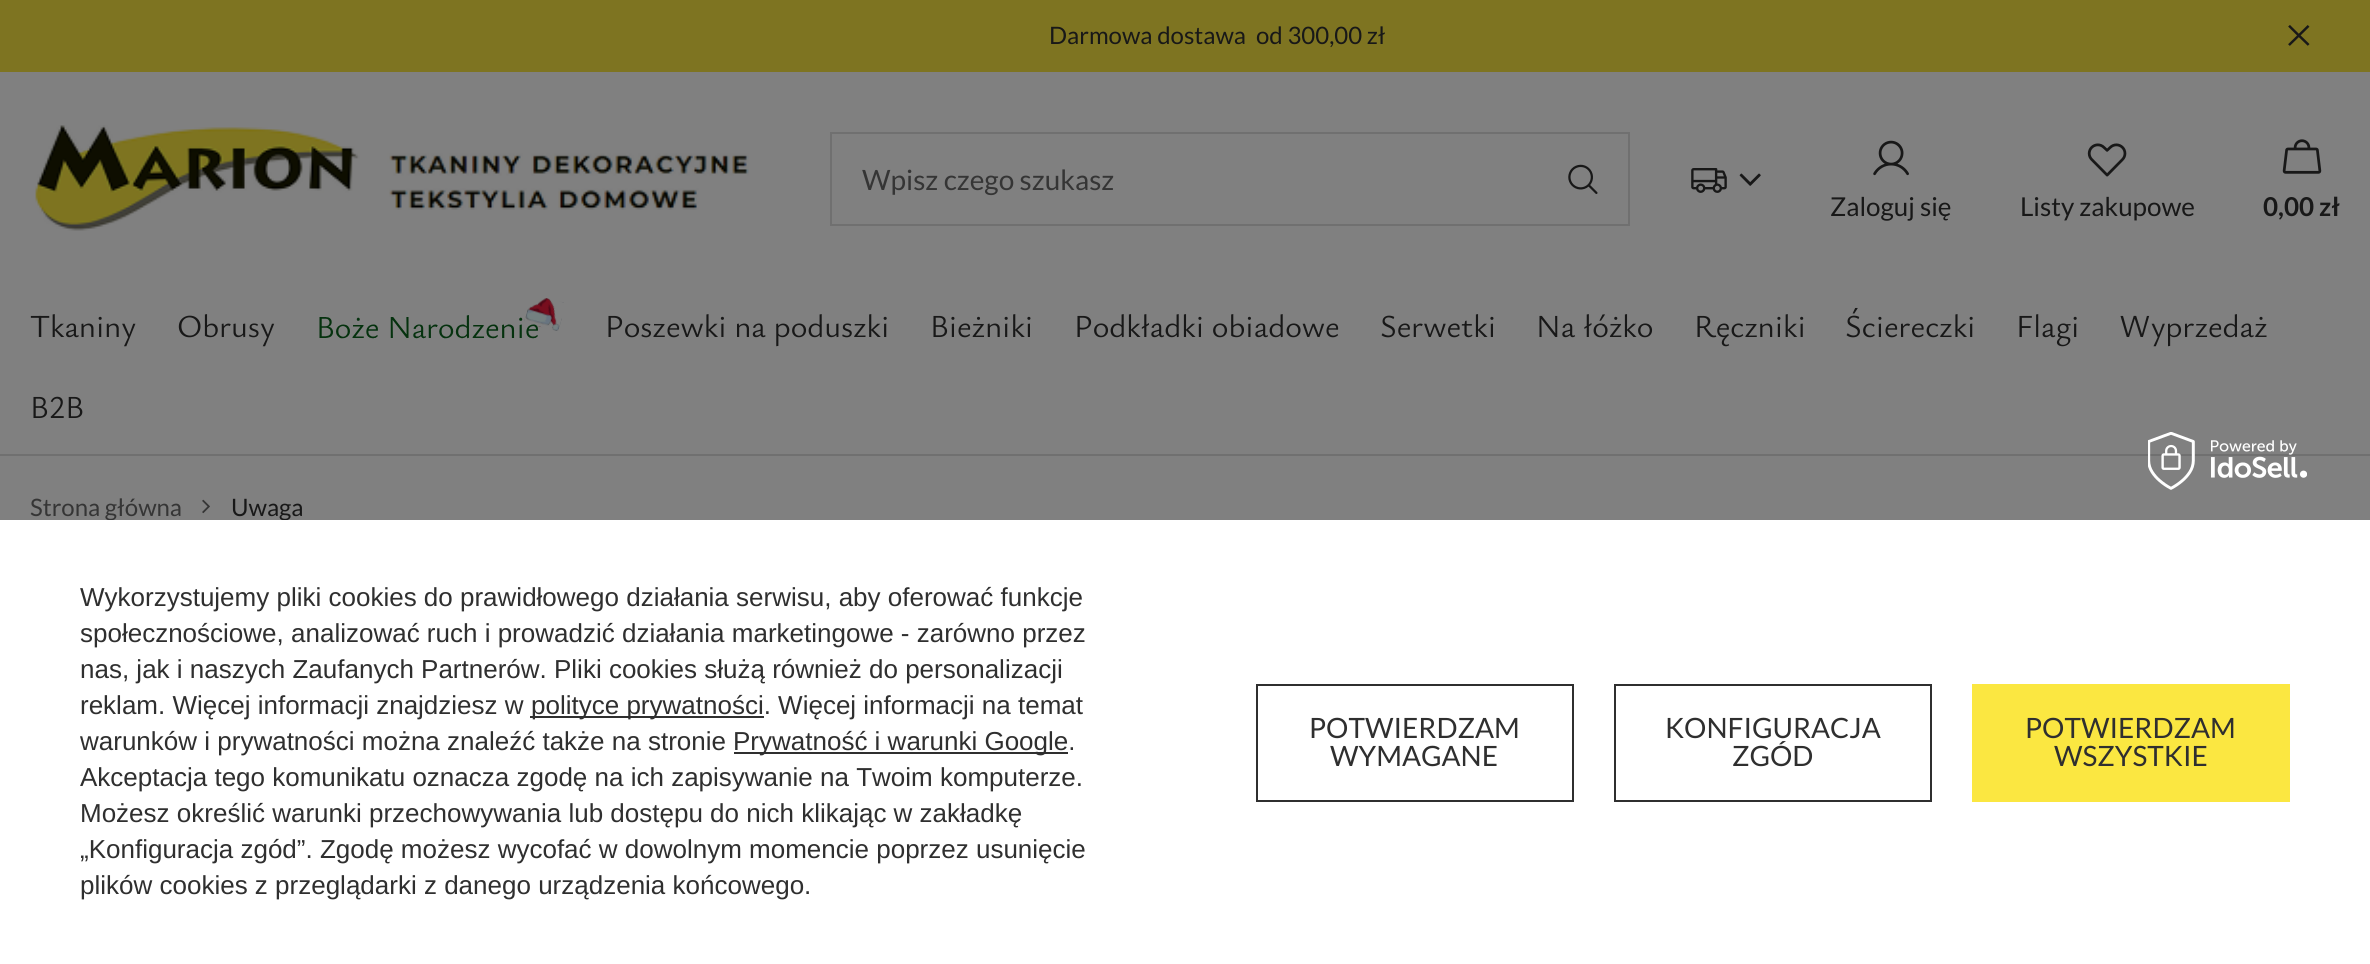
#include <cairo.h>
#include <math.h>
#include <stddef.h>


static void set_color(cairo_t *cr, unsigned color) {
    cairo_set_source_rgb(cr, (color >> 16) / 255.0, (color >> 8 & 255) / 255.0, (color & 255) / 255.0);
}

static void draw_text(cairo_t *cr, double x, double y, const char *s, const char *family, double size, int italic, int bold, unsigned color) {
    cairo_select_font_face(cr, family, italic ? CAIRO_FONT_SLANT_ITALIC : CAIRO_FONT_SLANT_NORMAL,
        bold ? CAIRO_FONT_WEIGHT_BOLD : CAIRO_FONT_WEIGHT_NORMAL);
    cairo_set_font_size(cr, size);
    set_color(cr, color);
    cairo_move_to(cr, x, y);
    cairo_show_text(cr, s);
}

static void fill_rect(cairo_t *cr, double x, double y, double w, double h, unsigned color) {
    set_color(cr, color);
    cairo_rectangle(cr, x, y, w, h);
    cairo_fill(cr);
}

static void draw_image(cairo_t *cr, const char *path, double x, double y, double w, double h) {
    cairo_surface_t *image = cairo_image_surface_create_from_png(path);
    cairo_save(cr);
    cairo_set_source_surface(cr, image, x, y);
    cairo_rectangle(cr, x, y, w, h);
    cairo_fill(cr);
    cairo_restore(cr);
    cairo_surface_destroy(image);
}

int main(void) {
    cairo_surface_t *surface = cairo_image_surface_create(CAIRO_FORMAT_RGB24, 2370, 964);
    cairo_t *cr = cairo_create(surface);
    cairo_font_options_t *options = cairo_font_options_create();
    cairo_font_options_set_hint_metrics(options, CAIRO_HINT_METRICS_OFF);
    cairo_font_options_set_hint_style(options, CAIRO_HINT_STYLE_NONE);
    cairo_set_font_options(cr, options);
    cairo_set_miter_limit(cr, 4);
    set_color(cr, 0x808080);
    cairo_paint(cr);
    fill_rect(cr, 0, 0, 2370, 72, 0x7E7421);
    draw_text(cr, 1049, 44, "Darmowa dostawa", "Lato", 24, 0, 0, 0x181818);
    draw_text(cr, 1256, 44, "od 300,00 zł", "Lato", 24, 0, 0, 0x181818);
    draw_image(cr, "assets/img1.png", 2288, 25, 22, 21);
    draw_image(cr, "assets/img2.png", 35, 125, 714, 106);
    cairo_rectangle(cr, 831, 133, 798, 92);
    set_color(cr, 0x707070);
    cairo_stroke(cr);
    draw_text(cr, 862, 190, "Wpisz czego szukasz", "Lato", 28, 0, 0, 0x353535);
    draw_image(cr, "assets/img3.png", 1568, 164, 30, 30);
    draw_image(cr, "assets/img4.png", 1691, 168, 36, 25);
    draw_image(cr, "assets/img5.png", 1739, 173, 22, 13);
    draw_image(cr, "assets/img6.png", 1873, 140, 36, 36);
    draw_text(cr, 1830, 216, "Zaloguj się", "Lato", 26, 0, 0, 0x181818);
    draw_image(cr, "assets/img7.png", 2087, 143, 40, 34);
    draw_text(cr, 2020, 216, "Listy zakupowe", "Lato", 26, 0, 0, 0x181818);
    draw_image(cr, "assets/img8.png", 2282, 139, 40, 35);
    draw_text(cr, 2263, 216, "0,00 zł", "Lato", 26, 0, 1, 0x181818);
    draw_text(cr, 30, 337, "Tkaniny", "Ysabeau Office", 32, 0, 0, 0x181818);
    draw_text(cr, 177, 337, "Obrusy", "Ysabeau Office", 32, 0, 0, 0x181818);
    draw_image(cr, "assets/img9.png", 319, 298, 245, 41);
    draw_text(cr, 605, 337, "Poszewki na poduszki", "Ysabeau Office", 32, 0, 0, 0x181818);
    draw_text(cr, 930, 337, "Bieżniki", "Ysabeau Office", 32, 0, 0, 0x181818);
    draw_text(cr, 1074, 337, "Podkładki obiadowe", "Ysabeau Office", 32, 0, 0, 0x181818);
    draw_text(cr, 1380, 337, "Serwetki", "Ysabeau Office", 32, 0, 0, 0x181818);
    draw_text(cr, 1536, 337, "Na łóżko", "Ysabeau Office", 32, 0, 0, 0x181818);
    draw_text(cr, 1694, 337, "Ręczniki", "Ysabeau Office", 32, 0, 0, 0x181818);
    draw_text(cr, 1845, 337, "Ściereczki", "Ysabeau Office", 32, 0, 0, 0x181818);
    draw_text(cr, 2016, 337, "Flagi", "Ysabeau Office", 32, 0, 0, 0x181818);
    draw_text(cr, 2119, 337, "Wyprzedaż", "Ysabeau Office", 32, 0, 0, 0x181818);
    draw_text(cr, 30, 418, "B2B", "Ysabeau Office", 32, 0, 0, 0x181818);
    fill_rect(cr, 0, 454, 2370, 2, 0x707070);
    draw_text(cr, 30, 516, "Strona główna", "Lato", 24, 0, 0, 0x353535);
    draw_image(cr, "assets/img10.png", 202, 499, 8, 15);
    draw_text(cr, 231, 516, "Uwaga", "Lato", 24, 0, 0, 0x181818);
    fill_rect(cr, 0, 520, 2370, 444, 0xFFFFFF);
    draw_image(cr, "assets/img11.png", 2148, 432, 159, 58);
    draw_text(cr, 80, 606, "Wykorzystujemy pliki cookies do prawidłowego działania serwisu, aby oferować funkcje", "Liberation Sans", 26, 0, 0, 0x2F2F2F);
    draw_text(cr, 80, 642, "społecznościowe, analizować ruch i prowadzić działania marketingowe - zarówno przez", "Liberation Sans", 26, 0, 0, 0x2F2F2F);
    draw_text(cr, 80, 678, "nas, jak i naszych Zaufanych Partnerów. Pliki cookies służą również do personalizacji", "Liberation Sans", 26, 0, 0, 0x2F2F2F);
    draw_text(cr, 80, 714, "reklam. Więcej informacji znajdziesz w", "Liberation Sans", 26, 0, 0, 0x2F2F2F);
    fill_rect(cr, 530, 716, 234, 2, 0x2F2F2F);
    draw_text(cr, 531, 714, "polityce prywatności. Więcej informacji na temat", "Liberation Sans", 26, 0, 0, 0x2F2F2F);
    draw_text(cr, 80, 750, "warunków i prywatności można znaleźć także na stronie", "Liberation Sans", 26, 0, 0, 0x2F2F2F);
    fill_rect(cr, 734, 752, 334, 2, 0x2F2F2F);
    draw_text(cr, 733, 750, "Prywatność i warunki Google.", "Liberation Sans", 26, 0, 0, 0x2F2F2F);
    draw_text(cr, 80, 786, "Akceptacja tego komunikatu oznacza zgodę na ich zapisywanie na Twoim komputerze.", "Liberation Sans", 26, 0, 0, 0x2F2F2F);
    draw_text(cr, 80, 822, "Możesz określić warunki przechowywania lub dostępu do nich klikając w zakładkę", "Liberation Sans", 26, 0, 0, 0x2F2F2F);
    draw_text(cr, 80, 858, "„Konfiguracja zgód”. Zgodę możesz wycofać w dowolnym momencie poprzez usunięcie", "Liberation Sans", 26, 0, 0, 0x2F2F2F);
    draw_text(cr, 80, 894, "plików cookies z przeglądarki z danego urządzenia końcowego.", "Liberation Sans", 26, 0, 0, 0x2F2F2F);
    cairo_rectangle(cr, 1257, 685, 316, 116);
    cairo_stroke(cr);
    draw_text(cr, 1309, 738, "POTWIERDZAM", "Lato", 28, 0, 0, 0x2F2F2F);
    draw_text(cr, 1330, 766, "WYMAGANE", "Lato", 28, 0, 0, 0x2F2F2F);
    cairo_rectangle(cr, 1615, 685, 316, 116);
    cairo_stroke(cr);
    draw_text(cr, 1665, 738, "KONFIGURACJA", "Lato", 28, 0, 0, 0x2F2F2F);
    draw_text(cr, 1732, 766, "ZGÓD", "Lato", 28, 0, 0, 0x2F2F2F);
    fill_rect(cr, 1972, 684, 318, 118, 0xFBE741);
    draw_text(cr, 2025, 738, "POTWIERDZAM", "Lato", 28, 0, 0, 0x2F2F2F);
    draw_text(cr, 2054, 766, "WSZYSTKIE", "Lato", 28, 0, 0, 0x2F2F2F);
    cairo_surface_write_to_png(surface, "output.png");
    cairo_font_options_destroy(options);
    cairo_destroy(cr);
    cairo_surface_destroy(surface);
    return 0;
}
